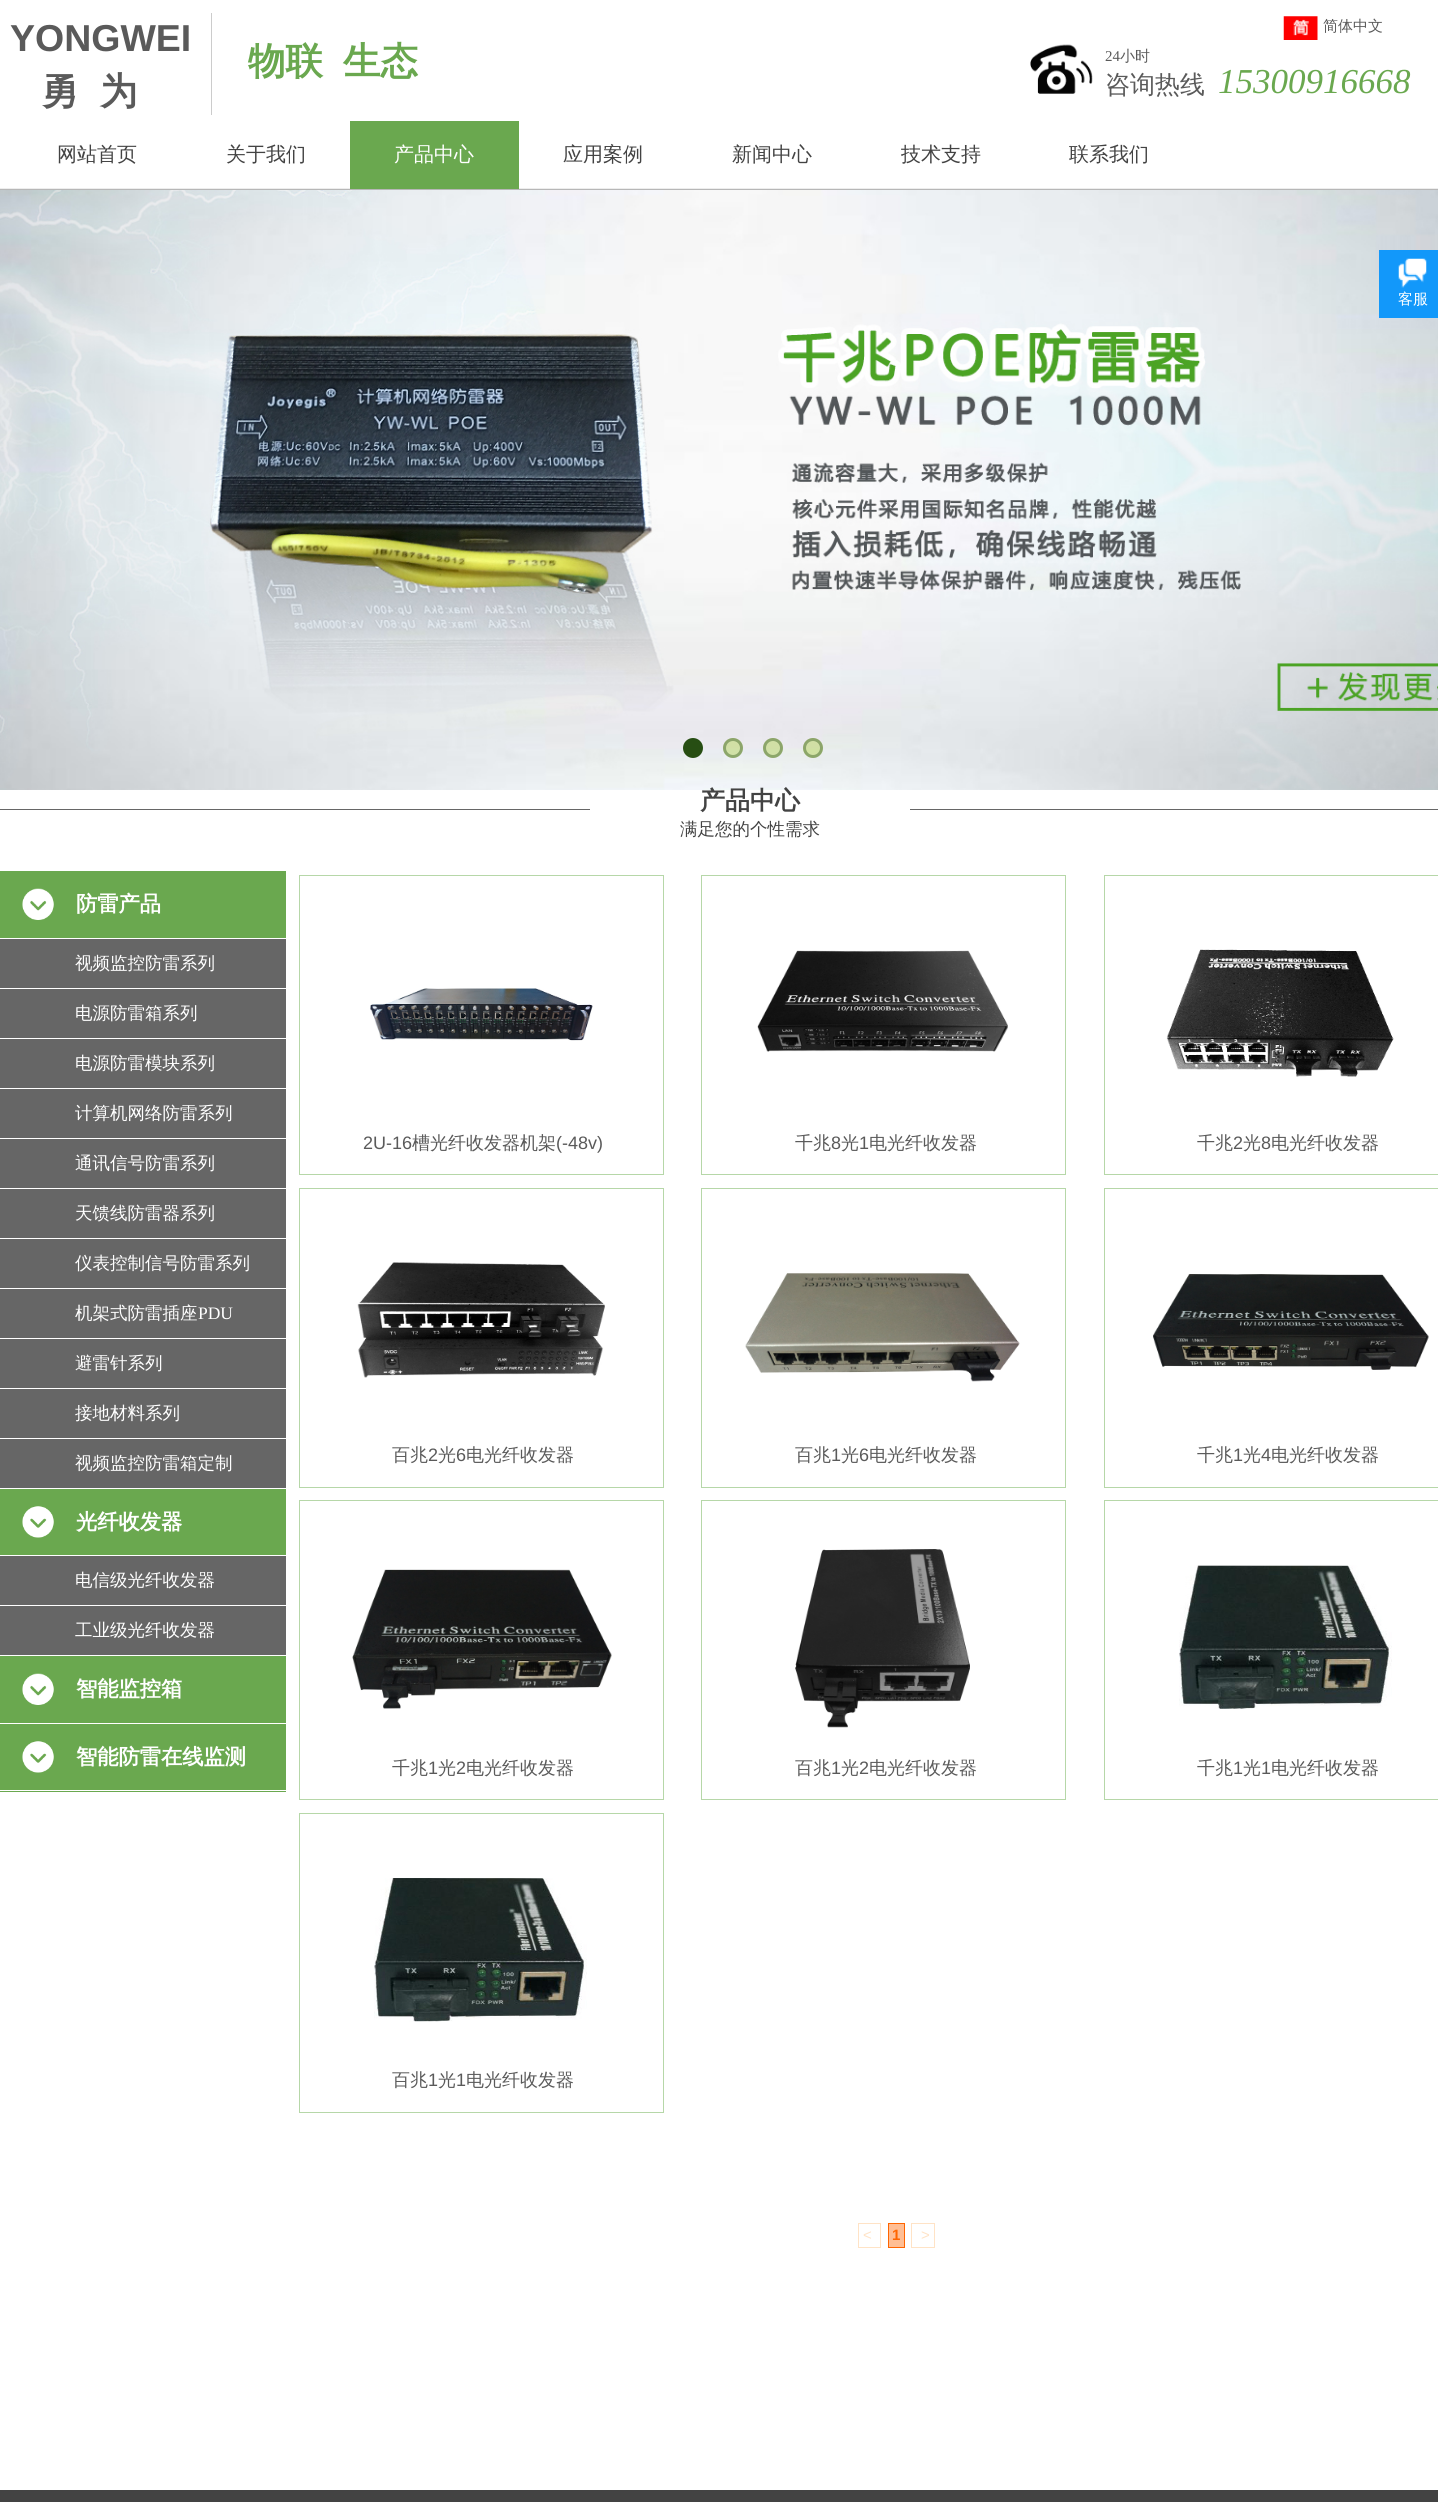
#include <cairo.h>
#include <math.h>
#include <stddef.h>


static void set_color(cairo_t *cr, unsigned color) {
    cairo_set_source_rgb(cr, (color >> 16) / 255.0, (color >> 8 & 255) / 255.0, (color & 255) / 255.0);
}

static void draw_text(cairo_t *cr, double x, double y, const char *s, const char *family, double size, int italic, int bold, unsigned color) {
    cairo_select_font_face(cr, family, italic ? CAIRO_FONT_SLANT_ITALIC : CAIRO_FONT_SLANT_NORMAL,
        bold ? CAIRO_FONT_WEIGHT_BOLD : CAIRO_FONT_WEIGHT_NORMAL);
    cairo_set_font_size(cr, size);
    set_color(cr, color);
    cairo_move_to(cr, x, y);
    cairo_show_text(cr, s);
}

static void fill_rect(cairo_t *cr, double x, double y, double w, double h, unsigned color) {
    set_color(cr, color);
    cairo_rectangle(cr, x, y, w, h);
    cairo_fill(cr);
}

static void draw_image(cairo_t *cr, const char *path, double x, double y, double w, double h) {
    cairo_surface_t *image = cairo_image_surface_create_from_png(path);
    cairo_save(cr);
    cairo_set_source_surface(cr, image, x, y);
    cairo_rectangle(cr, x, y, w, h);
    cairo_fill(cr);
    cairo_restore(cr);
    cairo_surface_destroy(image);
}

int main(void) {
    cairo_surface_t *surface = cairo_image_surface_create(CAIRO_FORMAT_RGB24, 1438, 2502);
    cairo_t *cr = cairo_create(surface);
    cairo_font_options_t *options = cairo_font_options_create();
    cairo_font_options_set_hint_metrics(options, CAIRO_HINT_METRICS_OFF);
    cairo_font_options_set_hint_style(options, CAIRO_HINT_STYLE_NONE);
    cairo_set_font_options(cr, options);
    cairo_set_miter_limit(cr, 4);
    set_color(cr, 0xFFFFFF);
    cairo_paint(cr);
    fill_rect(cr, 211, 13, 1, 102, 0xCCCCCC);
    draw_text(cr, 10, 51, "YONGWEI", "Liberation Sans", 37.5, 0, 1, 0x5A5A5A);
    draw_text(cr, 41, 104, "勇", "WenQuanYi Zen Hei", 37.5, 0, 1, 0x5A5A5A);
    draw_text(cr, 100, 104, "为", "WenQuanYi Zen Hei", 37.5, 0, 1, 0x5A5A5A);
    draw_text(cr, 248, 74, "物联", "WenQuanYi Zen Hei", 37.5, 0, 1, 0x6AA84F);
    draw_text(cr, 343, 74, "生态", "WenQuanYi Zen Hei", 37.5, 0, 1, 0x6AA84F);
    draw_image(cr, "assets/img1.png", 1030, 44, 63, 50);
    draw_text(cr, 1105, 61, "24", "Liberation Serif", 15, 0, 0, 0x5A5A5A);
    draw_text(cr, 1120, 61, "小时", "WenQuanYi Zen Hei Medium", 15, 0, 0, 0x5A5A5A);
    draw_text(cr, 1105, 93, "咨询热线", "WenQuanYi Zen Hei Medium", 25, 0, 0, 0x5A5A5A);
    draw_image(cr, "assets/img2.png", 1283, 16, 35, 24);
    draw_text(cr, 1323, 31, "简体中文", "WenQuanYi Zen Hei Medium", 15, 0, 0, 0x5A5A5A);
    draw_text(cr, 1218, 93, "15300916668", "Liberation Serif", 35, 1, 0, 0x6AA84F);
    draw_text(cr, 57, 161, "网站首页", "WenQuanYi Zen Hei Medium", 20, 0, 0, 0x434343);
    draw_text(cr, 226, 161, "关于我们", "WenQuanYi Zen Hei Medium", 20, 0, 0, 0x434343);
    draw_image(cr, "assets/img3.png", 0, 188, 1438, 2);
    fill_rect(cr, 350, 121, 169, 68, 0x6AA84F);
    draw_text(cr, 394, 161, "产品中心", "WenQuanYi Zen Hei Medium", 20, 0, 0, 0xFFFFFF);
    draw_text(cr, 563, 161, "应用案例", "WenQuanYi Zen Hei Medium", 20, 0, 0, 0x434343);
    draw_text(cr, 732, 161, "新闻中心", "WenQuanYi Zen Hei Medium", 20, 0, 0, 0x434343);
    draw_text(cr, 901, 161, "技术支持", "WenQuanYi Zen Hei Medium", 20, 0, 0, 0x434343);
    draw_text(cr, 1069, 161, "联系我们", "WenQuanYi Zen Hei Medium", 20, 0, 0, 0x434343);
    draw_image(cr, "assets/img4.png", 0, 190, 1438, 600);
    set_color(cr, 0x274E13);
    cairo_arc(cr, 693, 748, 8.5, 0, 2 * M_PI);
    cairo_fill_preserve(cr);
    cairo_set_line_width(cr, 3);
    cairo_stroke(cr);
    cairo_set_source_rgba(cr, 0.671, 0.812, 0.224, 0.4);
    cairo_arc(cr, 733, 748, 10, 0, 2 * M_PI);
    cairo_fill(cr);
    cairo_arc(cr, 733, 748, 8.5, 0, 2 * M_PI);
    cairo_set_source_rgba(cr, 0.153, 0.306, 0.075, 0.4);
    cairo_stroke(cr);
    cairo_set_source_rgba(cr, 0.671, 0.812, 0.224, 0.4);
    cairo_arc(cr, 773, 748, 10, 0, 2 * M_PI);
    cairo_fill(cr);
    cairo_arc(cr, 773, 748, 8.5, 0, 2 * M_PI);
    cairo_set_source_rgba(cr, 0.153, 0.306, 0.075, 0.4);
    cairo_stroke(cr);
    cairo_set_source_rgba(cr, 0.671, 0.812, 0.224, 0.4);
    cairo_arc(cr, 813, 748, 10, 0, 2 * M_PI);
    cairo_fill(cr);
    cairo_arc(cr, 813, 748, 8.5, 0, 2 * M_PI);
    cairo_set_source_rgba(cr, 0.153, 0.306, 0.075, 0.4);
    cairo_stroke(cr);
    fill_rect(cr, 0, 809, 590, 1, 0x666666);
    draw_text(cr, 700, 809, "产品中心", "WenQuanYi Zen Hei", 25, 0, 1, 0x434343);
    draw_text(cr, 680, 835, "满足您的个性需求", "WenQuanYi Zen Hei Medium", 17.5, 0, 0, 0x434343);
    fill_rect(cr, 910, 809, 528, 1, 0x666666);
    fill_rect(cr, 0, 1791, 286, 1, 0x6AA84F);
    fill_rect(cr, 0, 871, 286, 919, 0x6AA84F);
    fill_rect(cr, 0, 938, 286, 1, 0xFFFFFF);
    draw_image(cr, "assets/img5.png", 22, 888, 32, 32);
    draw_text(cr, 76, 911, "防雷产品", "WenQuanYi Zen Hei", 21.25, 0, 1, 0xFFFFFF);
    fill_rect(cr, 0, 939, 286, 49, 0x666666);
    fill_rect(cr, 0, 988, 286, 1, 0xFFFFFF);
    draw_text(cr, 75, 969, "视频监控防雷系列", "WenQuanYi Zen Hei Medium", 17.5, 0, 0, 0xFFFFFF);
    fill_rect(cr, 0, 989, 286, 49, 0x666666);
    fill_rect(cr, 0, 1038, 286, 1, 0xFFFFFF);
    draw_text(cr, 75, 1019, "电源防雷箱系列", "WenQuanYi Zen Hei Medium", 17.5, 0, 0, 0xFFFFFF);
    fill_rect(cr, 0, 1039, 286, 49, 0x666666);
    fill_rect(cr, 0, 1088, 286, 1, 0xFFFFFF);
    draw_text(cr, 75, 1069, "电源防雷模块系列", "WenQuanYi Zen Hei Medium", 17.5, 0, 0, 0xFFFFFF);
    fill_rect(cr, 0, 1089, 286, 49, 0x666666);
    fill_rect(cr, 0, 1138, 286, 1, 0xFFFFFF);
    draw_text(cr, 75, 1119, "计算机网络防雷系列", "WenQuanYi Zen Hei Medium", 17.5, 0, 0, 0xFFFFFF);
    fill_rect(cr, 0, 1139, 286, 49, 0x666666);
    fill_rect(cr, 0, 1188, 286, 1, 0xFFFFFF);
    draw_text(cr, 75, 1169, "通讯信号防雷系列", "WenQuanYi Zen Hei Medium", 17.5, 0, 0, 0xFFFFFF);
    fill_rect(cr, 0, 1189, 286, 49, 0x666666);
    fill_rect(cr, 0, 1238, 286, 1, 0xFFFFFF);
    draw_text(cr, 75, 1219, "天馈线防雷器系列", "WenQuanYi Zen Hei Medium", 17.5, 0, 0, 0xFFFFFF);
    fill_rect(cr, 0, 1239, 286, 49, 0x666666);
    fill_rect(cr, 0, 1288, 286, 1, 0xFFFFFF);
    draw_text(cr, 75, 1269, "仪表控制信号防雷系列", "WenQuanYi Zen Hei Medium", 17.5, 0, 0, 0xFFFFFF);
    fill_rect(cr, 0, 1289, 286, 49, 0x666666);
    fill_rect(cr, 0, 1338, 286, 1, 0xFFFFFF);
    draw_text(cr, 75, 1319, "机架式防雷插座", "WenQuanYi Zen Hei Medium", 17.5, 0, 0, 0xFFFFFF);
    draw_text(cr, 198, 1319, "PDU", "Liberation Serif", 17.5, 0, 0, 0xFFFFFF);
    fill_rect(cr, 0, 1339, 286, 49, 0x666666);
    fill_rect(cr, 0, 1388, 286, 1, 0xFFFFFF);
    draw_text(cr, 75, 1369, "避雷针系列", "WenQuanYi Zen Hei Medium", 17.5, 0, 0, 0xFFFFFF);
    fill_rect(cr, 0, 1389, 286, 49, 0x666666);
    fill_rect(cr, 0, 1438, 286, 1, 0xFFFFFF);
    draw_text(cr, 75, 1419, "接地材料系列", "WenQuanYi Zen Hei Medium", 17.5, 0, 0, 0xFFFFFF);
    fill_rect(cr, 0, 1439, 286, 49, 0x666666);
    fill_rect(cr, 0, 1488, 286, 1, 0xFFFFFF);
    draw_text(cr, 75, 1469, "视频监控防雷箱定制", "WenQuanYi Zen Hei Medium", 17.5, 0, 0, 0xFFFFFF);
    fill_rect(cr, 0, 1555, 286, 1, 0xFFFFFF);
    draw_image(cr, "assets/img6.png", 22, 1506, 32, 32);
    draw_text(cr, 76, 1529, "光纤收发器", "WenQuanYi Zen Hei", 21.25, 0, 1, 0xFFFFFF);
    fill_rect(cr, 0, 1556, 286, 49, 0x666666);
    fill_rect(cr, 0, 1605, 286, 1, 0xFFFFFF);
    draw_text(cr, 75, 1586, "电信级光纤收发器", "WenQuanYi Zen Hei Medium", 17.5, 0, 0, 0xFFFFFF);
    fill_rect(cr, 0, 1606, 286, 49, 0x666666);
    fill_rect(cr, 0, 1655, 286, 1, 0xFFFFFF);
    draw_text(cr, 75, 1636, "工业级光纤收发器", "WenQuanYi Zen Hei Medium", 17.5, 0, 0, 0xFFFFFF);
    fill_rect(cr, 0, 1723, 286, 1, 0xFFFFFF);
    draw_image(cr, "assets/img5.png", 22, 1673, 32, 32);
    draw_text(cr, 76, 1696, "智能监控箱", "WenQuanYi Zen Hei", 21.25, 0, 1, 0xFFFFFF);
    draw_image(cr, "assets/img6.png", 22, 1741, 32, 32);
    draw_text(cr, 76, 1764, "智能防雷在线监测", "WenQuanYi Zen Hei", 21.25, 0, 1, 0xFFFFFF);
    cairo_rectangle(cr, 299.5, 875.5, 364, 299);
    set_color(cr, 0xB6D7A8);
    cairo_set_line_width(cr, 1);
    cairo_stroke(cr);
    draw_image(cr, "assets/img7.png", 370, 988, 223, 53);
    draw_text(cr, 363, 1149, "2U-16", "Liberation Sans", 18, 0, 0, 0x5A5A5A);
    draw_text(cr, 412, 1149, "槽光纤收发器机架", "WenQuanYi Zen Hei Medium", 18, 0, 0, 0x5A5A5A);
    draw_text(cr, 556, 1149, "(-48v)", "Liberation Sans", 18, 0, 0, 0x5A5A5A);
    cairo_rectangle(cr, 701.5, 875.5, 364, 299);
    set_color(cr, 0xB6D7A8);
    cairo_stroke(cr);
    draw_image(cr, "assets/img8.png", 757, 950, 251, 102);
    draw_text(cr, 795, 1149, "千兆", "WenQuanYi Zen Hei Medium", 18, 0, 0, 0x5A5A5A);
    draw_text(cr, 831, 1149, "8", "Liberation Sans", 18, 0, 0, 0x5A5A5A);
    draw_text(cr, 841, 1149, "光", "WenQuanYi Zen Hei Medium", 18, 0, 0, 0x5A5A5A);
    draw_text(cr, 859, 1149, "1", "Liberation Sans", 18, 0, 0, 0x5A5A5A);
    draw_text(cr, 869, 1149, "电光纤收发器", "WenQuanYi Zen Hei Medium", 18, 0, 0, 0x5A5A5A);
    cairo_rectangle(cr, 1104.5, 875.5, 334, 299);
    set_color(cr, 0xB6D7A8);
    cairo_stroke(cr);
    draw_image(cr, "assets/img9.png", 1166, 949, 228, 128);
    draw_text(cr, 1197, 1149, "千兆", "WenQuanYi Zen Hei Medium", 18, 0, 0, 0x5A5A5A);
    draw_text(cr, 1233, 1149, "2", "Liberation Sans", 18, 0, 0, 0x5A5A5A);
    draw_text(cr, 1243, 1149, "光", "WenQuanYi Zen Hei Medium", 18, 0, 0, 0x5A5A5A);
    draw_text(cr, 1261, 1149, "8", "Liberation Sans", 18, 0, 0, 0x5A5A5A);
    draw_text(cr, 1271, 1149, "电光纤收发器", "WenQuanYi Zen Hei Medium", 18, 0, 0, 0x5A5A5A);
    cairo_rectangle(cr, 299.5, 1188.5, 364, 299);
    set_color(cr, 0xB6D7A8);
    cairo_stroke(cr);
    draw_image(cr, "assets/img10.png", 357, 1262, 248, 116);
    draw_text(cr, 392, 1461, "百兆", "WenQuanYi Zen Hei Medium", 18, 0, 0, 0x5A5A5A);
    draw_text(cr, 428, 1461, "2", "Liberation Sans", 18, 0, 0, 0x5A5A5A);
    draw_text(cr, 438, 1461, "光", "WenQuanYi Zen Hei Medium", 18, 0, 0, 0x5A5A5A);
    draw_text(cr, 456, 1461, "6", "Liberation Sans", 18, 0, 0, 0x5A5A5A);
    draw_text(cr, 466, 1461, "电光纤收发器", "WenQuanYi Zen Hei Medium", 18, 0, 0, 0x5A5A5A);
    cairo_rectangle(cr, 701.5, 1188.5, 364, 299);
    set_color(cr, 0xB6D7A8);
    cairo_stroke(cr);
    draw_image(cr, "assets/img11.png", 745, 1273, 275, 109);
    draw_text(cr, 795, 1461, "百兆", "WenQuanYi Zen Hei Medium", 18, 0, 0, 0x5A5A5A);
    draw_text(cr, 831, 1461, "1", "Liberation Sans", 18, 0, 0, 0x5A5A5A);
    draw_text(cr, 841, 1461, "光", "WenQuanYi Zen Hei Medium", 18, 0, 0, 0x5A5A5A);
    draw_text(cr, 859, 1461, "6", "Liberation Sans", 18, 0, 0, 0x5A5A5A);
    draw_text(cr, 869, 1461, "电光纤收发器", "WenQuanYi Zen Hei Medium", 18, 0, 0, 0x5A5A5A);
    cairo_rectangle(cr, 1104.5, 1188.5, 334, 299);
    set_color(cr, 0xB6D7A8);
    cairo_stroke(cr);
    draw_image(cr, "assets/img12.png", 1153, 1274, 276, 96);
    draw_text(cr, 1197, 1461, "千兆", "WenQuanYi Zen Hei Medium", 18, 0, 0, 0x5A5A5A);
    draw_text(cr, 1233, 1461, "1", "Liberation Sans", 18, 0, 0, 0x5A5A5A);
    draw_text(cr, 1243, 1461, "光", "WenQuanYi Zen Hei Medium", 18, 0, 0, 0x5A5A5A);
    draw_text(cr, 1261, 1461, "4", "Liberation Sans", 18, 0, 0, 0x5A5A5A);
    draw_text(cr, 1271, 1461, "电光纤收发器", "WenQuanYi Zen Hei Medium", 18, 0, 0, 0x5A5A5A);
    cairo_rectangle(cr, 299.5, 1500.5, 364, 299);
    set_color(cr, 0xB6D7A8);
    cairo_stroke(cr);
    draw_image(cr, "assets/img13.png", 352, 1569, 260, 140);
    draw_text(cr, 392, 1774, "千兆", "WenQuanYi Zen Hei Medium", 18, 0, 0, 0x5A5A5A);
    draw_text(cr, 428, 1774, "1", "Liberation Sans", 18, 0, 0, 0x5A5A5A);
    draw_text(cr, 438, 1774, "光", "WenQuanYi Zen Hei Medium", 18, 0, 0, 0x5A5A5A);
    draw_text(cr, 456, 1774, "2", "Liberation Sans", 18, 0, 0, 0x5A5A5A);
    draw_text(cr, 466, 1774, "电光纤收发器", "WenQuanYi Zen Hei Medium", 18, 0, 0, 0x5A5A5A);
    cairo_rectangle(cr, 701.5, 1500.5, 364, 299);
    set_color(cr, 0xB6D7A8);
    cairo_stroke(cr);
    draw_image(cr, "assets/img14.png", 795, 1549, 175, 179);
    draw_text(cr, 795, 1774, "百兆", "WenQuanYi Zen Hei Medium", 18, 0, 0, 0x5A5A5A);
    draw_text(cr, 831, 1774, "1", "Liberation Sans", 18, 0, 0, 0x5A5A5A);
    draw_text(cr, 841, 1774, "光", "WenQuanYi Zen Hei Medium", 18, 0, 0, 0x5A5A5A);
    draw_text(cr, 859, 1774, "2", "Liberation Sans", 18, 0, 0, 0x5A5A5A);
    draw_text(cr, 869, 1774, "电光纤收发器", "WenQuanYi Zen Hei Medium", 18, 0, 0, 0x5A5A5A);
    cairo_rectangle(cr, 1104.5, 1500.5, 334, 299);
    set_color(cr, 0xB6D7A8);
    cairo_stroke(cr);
    draw_image(cr, "assets/img15.png", 1179, 1565, 213, 144);
    draw_text(cr, 1197, 1774, "千兆", "WenQuanYi Zen Hei Medium", 18, 0, 0, 0x5A5A5A);
    draw_text(cr, 1233, 1774, "1", "Liberation Sans", 18, 0, 0, 0x5A5A5A);
    draw_text(cr, 1243, 1774, "光", "WenQuanYi Zen Hei Medium", 18, 0, 0, 0x5A5A5A);
    draw_text(cr, 1261, 1774, "1", "Liberation Sans", 18, 0, 0, 0x5A5A5A);
    draw_text(cr, 1271, 1774, "电光纤收发器", "WenQuanYi Zen Hei Medium", 18, 0, 0, 0x5A5A5A);
    cairo_rectangle(cr, 299.5, 1813.5, 364, 299);
    set_color(cr, 0xB6D7A8);
    cairo_stroke(cr);
    draw_image(cr, "assets/img16.png", 374, 1878, 213, 144);
    draw_text(cr, 392, 2086, "百兆", "WenQuanYi Zen Hei Medium", 18, 0, 0, 0x5A5A5A);
    draw_text(cr, 428, 2086, "1", "Liberation Sans", 18, 0, 0, 0x5A5A5A);
    draw_text(cr, 438, 2086, "光", "WenQuanYi Zen Hei Medium", 18, 0, 0, 0x5A5A5A);
    draw_text(cr, 456, 2086, "1", "Liberation Sans", 18, 0, 0, 0x5A5A5A);
    draw_text(cr, 466, 2086, "电光纤收发器", "WenQuanYi Zen Hei Medium", 18, 0, 0, 0x5A5A5A);
    cairo_rectangle(cr, 858.5, 2223.5, 22, 24);
    set_color(cr, 0xFFE3C6);
    cairo_stroke(cr);
    draw_text(cr, 863, 2240, "<", "Liberation Sans", 15, 0, 0, 0xFFE3C6);
    set_color(cr, 0xFFBE94);
    cairo_rectangle(cr, 888.5, 2223.5, 16, 24);
    cairo_fill_preserve(cr);
    set_color(cr, 0xFF6500);
    cairo_stroke(cr);
    draw_text(cr, 892, 2240, "1", "Liberation Sans", 15, 0, 1, 0xFF6500);
    cairo_rectangle(cr, 911.5, 2223.5, 23, 24);
    set_color(cr, 0xFFE3C6);
    cairo_stroke(cr);
    draw_text(cr, 921, 2240, ">", "Liberation Sans", 15, 0, 0, 0xFFE3C6);
    fill_rect(cr, 0, 2490, 1438, 12, 0x434343);
    fill_rect(cr, 1379, 250, 59, 68, 0x1298FA);
    draw_image(cr, "assets/img17.png", 1398, 258, 29, 30);
    draw_text(cr, 1398, 304, "客服", "WenQuanYi Zen Hei Medium", 15, 0, 0, 0xFFFFFF);
    cairo_surface_write_to_png(surface, "output.png");
    cairo_font_options_destroy(options);
    cairo_destroy(cr);
    cairo_surface_destroy(surface);
    return 0;
}
